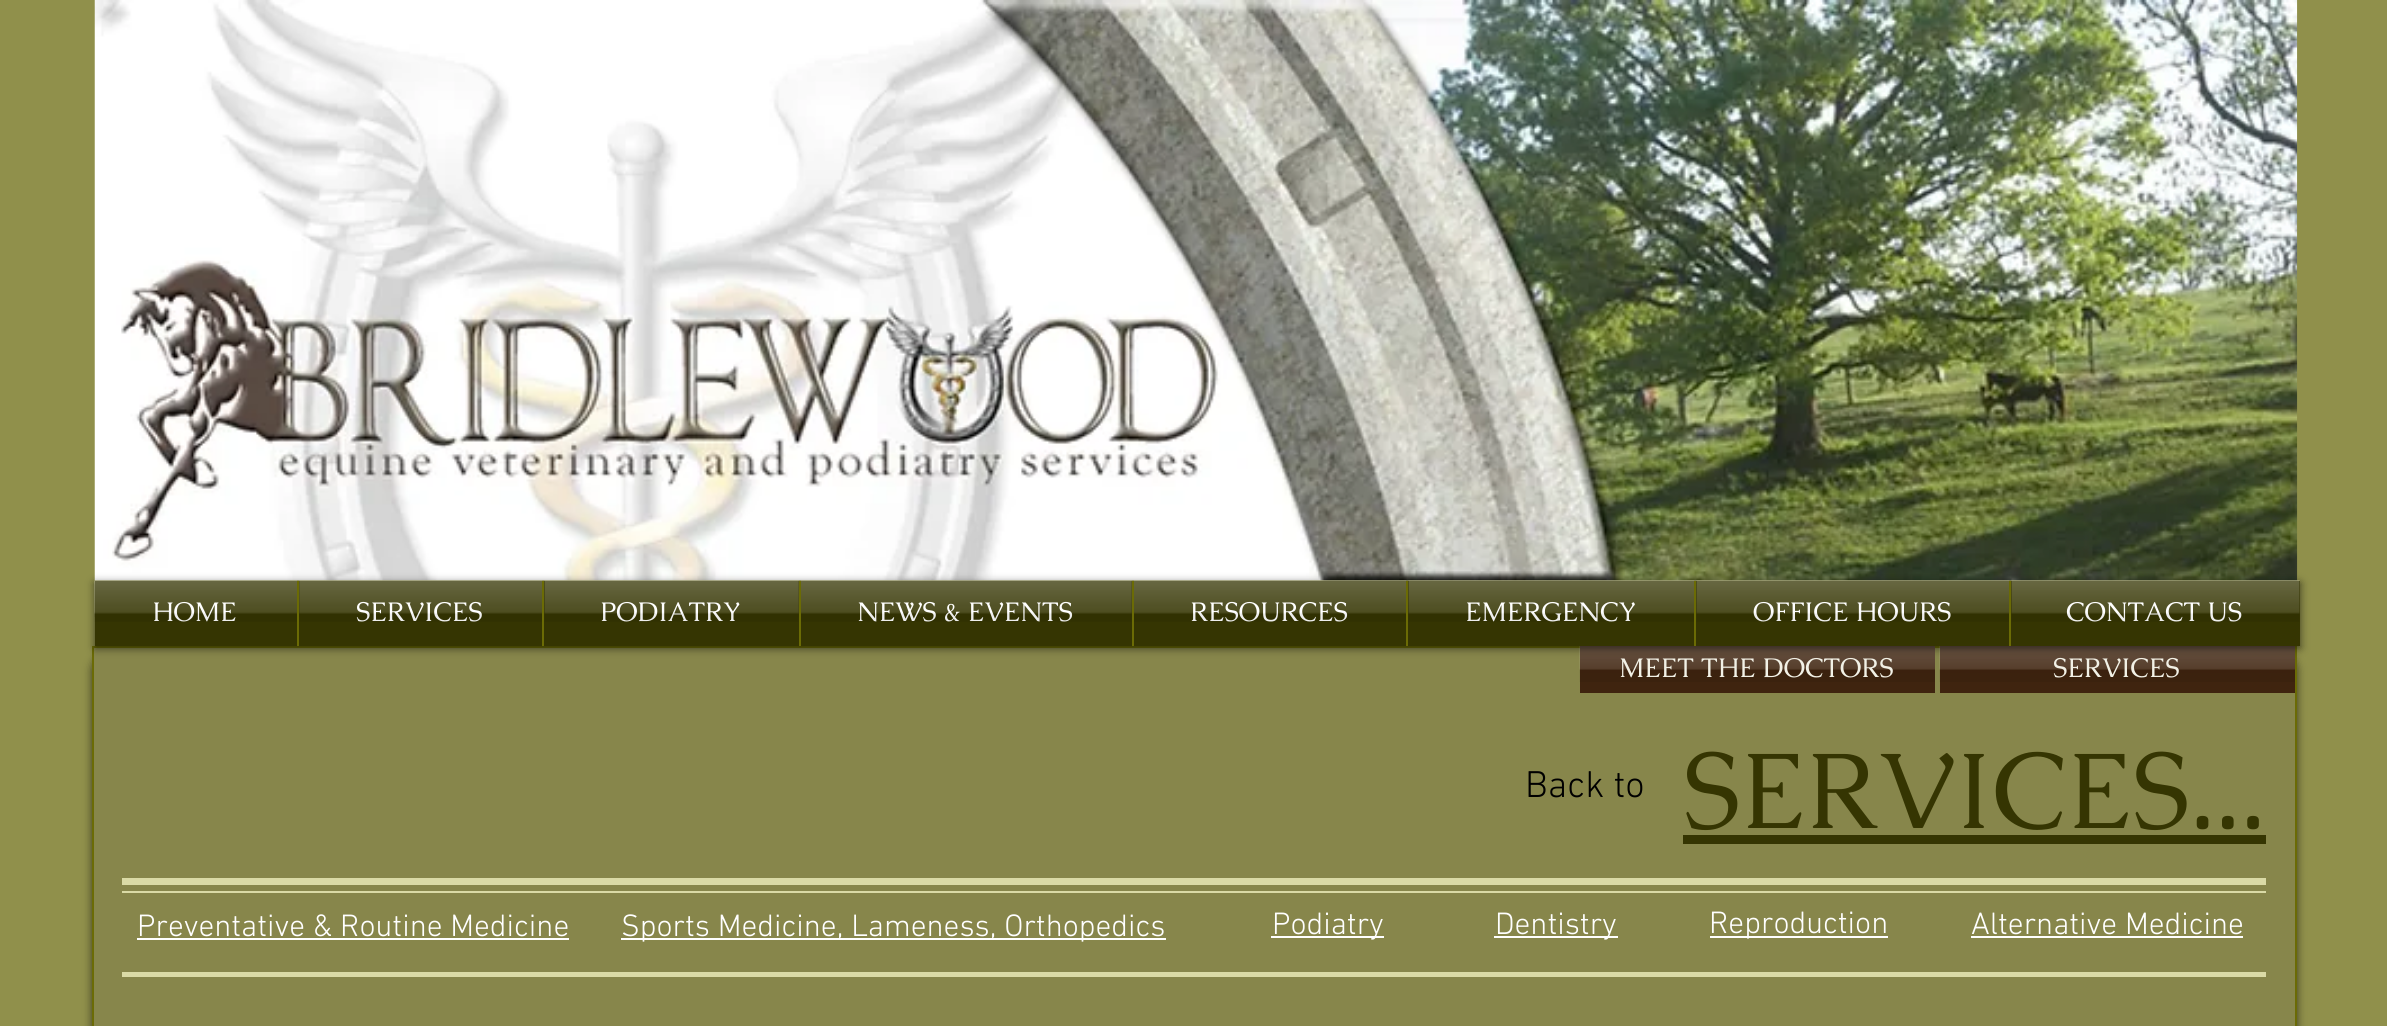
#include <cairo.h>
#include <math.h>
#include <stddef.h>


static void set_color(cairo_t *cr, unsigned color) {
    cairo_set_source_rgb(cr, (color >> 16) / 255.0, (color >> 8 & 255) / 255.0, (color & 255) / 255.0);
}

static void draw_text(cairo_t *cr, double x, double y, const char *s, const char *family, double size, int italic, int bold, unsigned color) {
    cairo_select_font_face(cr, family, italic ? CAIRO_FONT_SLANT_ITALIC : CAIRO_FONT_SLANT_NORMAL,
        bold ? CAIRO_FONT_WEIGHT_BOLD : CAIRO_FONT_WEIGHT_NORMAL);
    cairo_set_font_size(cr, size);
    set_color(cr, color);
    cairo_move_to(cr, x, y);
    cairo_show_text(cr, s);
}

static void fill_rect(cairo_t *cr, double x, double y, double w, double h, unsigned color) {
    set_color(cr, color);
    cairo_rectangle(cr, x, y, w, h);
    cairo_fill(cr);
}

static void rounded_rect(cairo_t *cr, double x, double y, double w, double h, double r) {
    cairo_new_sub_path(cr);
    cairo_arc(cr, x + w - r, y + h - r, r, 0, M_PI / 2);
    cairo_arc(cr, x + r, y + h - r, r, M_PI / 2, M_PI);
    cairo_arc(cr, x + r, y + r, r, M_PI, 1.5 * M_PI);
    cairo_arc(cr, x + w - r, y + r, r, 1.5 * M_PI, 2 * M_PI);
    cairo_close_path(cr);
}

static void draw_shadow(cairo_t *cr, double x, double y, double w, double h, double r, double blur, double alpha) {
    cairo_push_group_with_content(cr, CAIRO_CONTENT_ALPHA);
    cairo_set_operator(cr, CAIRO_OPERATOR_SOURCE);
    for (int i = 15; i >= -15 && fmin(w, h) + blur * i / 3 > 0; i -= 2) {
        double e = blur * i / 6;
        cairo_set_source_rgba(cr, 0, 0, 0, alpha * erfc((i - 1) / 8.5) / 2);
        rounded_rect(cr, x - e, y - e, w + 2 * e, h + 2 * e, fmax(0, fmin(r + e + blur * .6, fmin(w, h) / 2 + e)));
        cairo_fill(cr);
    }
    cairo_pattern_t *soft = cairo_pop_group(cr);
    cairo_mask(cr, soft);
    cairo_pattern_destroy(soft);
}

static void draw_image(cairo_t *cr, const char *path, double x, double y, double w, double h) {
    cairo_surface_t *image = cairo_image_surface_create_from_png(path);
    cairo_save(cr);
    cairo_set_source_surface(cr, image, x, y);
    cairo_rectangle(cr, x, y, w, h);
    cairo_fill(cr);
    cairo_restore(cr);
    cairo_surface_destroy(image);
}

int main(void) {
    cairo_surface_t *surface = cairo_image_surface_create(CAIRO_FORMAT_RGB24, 2387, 1026);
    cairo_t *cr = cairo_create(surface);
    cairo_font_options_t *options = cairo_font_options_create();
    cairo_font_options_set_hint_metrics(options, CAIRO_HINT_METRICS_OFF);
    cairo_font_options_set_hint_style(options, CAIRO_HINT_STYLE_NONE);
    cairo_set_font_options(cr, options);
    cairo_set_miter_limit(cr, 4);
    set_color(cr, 0x90904B);
    cairo_paint(cr);
    draw_image(cr, "assets/img1.png", 94, 0, 2204, 581);
    cairo_save(cr);
    cairo_set_fill_rule(cr, CAIRO_FILL_RULE_EVEN_ODD);
    cairo_new_path(cr);
    cairo_move_to(cr, 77, 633);
    cairo_line_to(cr, 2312, 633);
    cairo_line_to(cr, 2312, 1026);
    cairo_line_to(cr, 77, 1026);
    cairo_close_path(cr);
    cairo_move_to(cr, 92, 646);
    cairo_line_to(cr, 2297, 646);
    cairo_line_to(cr, 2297, 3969);
    cairo_curve_to(cr, 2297, 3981.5, 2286.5, 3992, 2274, 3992);
    cairo_line_to(cr, 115, 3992);
    cairo_curve_to(cr, 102.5, 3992, 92, 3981.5, 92, 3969);
    cairo_close_path(cr);
    cairo_clip(cr);
    set_color(cr, 0x000000);
    draw_shadow(cr, 92, 648, 2205, 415, 23, 4.5, 0.6);
    cairo_restore(cr);
    cairo_set_source_rgba(cr, 0.49, 0.482, 0.298, 0.48);
    cairo_rectangle(cr, 93, 647, 2203, 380);
    cairo_fill_preserve(cr);
    set_color(cr, 0x6B6B05);
    cairo_stroke(cr);
    fill_rect(cr, 1580, 646, 355, 47, 0x3F240F);
    draw_image(cr, "assets/img11.png", 1579, 646, 356, 36);
    fill_rect(cr, 1940, 646, 355, 47, 0x3F240F);
    draw_image(cr, "assets/img11.png", 1939, 646, 356, 36);
    set_color(cr, 0x000000);
    draw_shadow(cr, 95, 583, 2205, 65, 0, 4.5, 0.6);
    draw_image(cr, "assets/img2.png", 94, 580, 2206, 37);
    fill_rect(cr, 95, 581, 202, 65, 0x353502);
    draw_text(cr, 152, 621, "HOME", "Caudex", 27, 0, 0, 0xFFFFFF);
    draw_image(cr, "assets/img3.png", 94, 580, 203, 42);
    fill_rect(cr, 299, 581, 243, 65, 0x353502);
    fill_rect(cr, 297, 581, 2, 65, 0x6B6B05);
    draw_text(cr, 356, 621, "SERVICES", "Caudex", 27, 0, 0, 0xFFFFFF);
    draw_image(cr, "assets/img4.png", 299, 580, 244, 42);
    fill_rect(cr, 544, 581, 255, 65, 0x353502);
    fill_rect(cr, 542, 581, 2, 65, 0x6B6B05);
    draw_text(cr, 600, 621, "PODIATRY", "Caudex", 27, 0, 0, 0xFFFFFF);
    draw_image(cr, "assets/img5.png", 544, 580, 255, 42);
    fill_rect(cr, 801, 581, 331, 65, 0x353502);
    fill_rect(cr, 799, 581, 2, 65, 0x6B6B05);
    draw_text(cr, 857, 621, "NEWS & EVENTS", "Caudex", 27, 0, 0, 0xFFFFFF);
    draw_image(cr, "assets/img6.png", 801, 580, 331, 42);
    fill_rect(cr, 1134, 581, 272, 65, 0x353502);
    fill_rect(cr, 1132, 581, 2, 65, 0x6B6B05);
    draw_text(cr, 1190, 621, "RESOURCES", "Caudex", 27, 0, 0, 0xFFFFFF);
    draw_image(cr, "assets/img7.png", 1134, 580, 273, 42);
    fill_rect(cr, 1408, 581, 286, 65, 0x353502);
    fill_rect(cr, 1406, 581, 2, 65, 0x6B6B05);
    draw_text(cr, 1465, 621, "EMERGENCY", "Caudex", 27, 0, 0, 0xFFFFFF);
    draw_image(cr, "assets/img8.png", 1408, 580, 287, 42);
    fill_rect(cr, 1696, 581, 313, 65, 0x353502);
    fill_rect(cr, 1694, 581, 2, 65, 0x6B6B05);
    draw_text(cr, 1753, 621, "OFFICE HOURS", "Caudex", 27, 0, 0, 0xFFFFFF);
    draw_image(cr, "assets/img9.png", 1696, 580, 314, 42);
    fill_rect(cr, 2011, 581, 289, 65, 0x353502);
    fill_rect(cr, 2009, 581, 2, 65, 0x6B6B05);
    draw_text(cr, 2066, 621, "CONTACT US", "Caudex", 27, 0, 0, 0xFFFFFF);
    draw_image(cr, "assets/img10.png", 2011, 580, 289, 42);
    draw_text(cr, 1619, 677, "MEET THE DOCTORS", "Caudex", 27, 0, 0, 0xF2F1E6);
    draw_text(cr, 2053, 677, "SERVICES", "Caudex", 27, 0, 0, 0xF2F1E6);
    draw_text(cr, 1525, 797, "Back to", "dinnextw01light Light", 38, 0, 0, 0x000000);
    draw_text(cr, 1683, 828, "SERVICES...", "Caudex", 108, 0, 0, 0x353502);
    fill_rect(cr, 1683, 835, 583, 9, 0x353502);
    fill_rect(cr, 122, 878, 2144, 7, 0xDADAA6);
    fill_rect(cr, 122, 891, 2144, 2, 0xDADAA6);
    draw_text(cr, 137, 936, "Preventative & Routine Medicine", "dinnextw01light Light", 31.5, 0, 0, 0xFFFFFF);
    fill_rect(cr, 137, 938, 432, 2, 0xFFFFFF);
    fill_rect(cr, 621, 938, 545, 2, 0xFFFFFF);
    draw_text(cr, 621, 936, "Sports Medicine, Lameness, Orthopedics", "dinnextw01light Light", 31.5, 0, 0, 0xFFFFFF);
    fill_rect(cr, 1271, 936, 113, 2, 0xFFFFFF);
    draw_text(cr, 1272, 934, "Podiatry", "dinnextw01light Light", 31.5, 0, 0, 0xFFFFFF);
    fill_rect(cr, 1494, 936, 124, 2, 0xFFFFFF);
    draw_text(cr, 1495, 934, "Dentistry", "dinnextw01light Light", 31.5, 0, 0, 0xFFFFFF);
    fill_rect(cr, 1710, 936, 178, 2, 0xFFFFFF);
    draw_text(cr, 1709, 933, "Reproduction", "dinnextw01light Light", 31.5, 0, 0, 0xFFFFFF);
    draw_text(cr, 1971, 934, "Alternative Medicine", "dinnextw01light Light", 31.5, 0, 0, 0xFFFFFF);
    fill_rect(cr, 1971, 936, 272, 2, 0xFFFFFF);
    fill_rect(cr, 122, 972, 2144, 5, 0xDADAA6);
    cairo_surface_write_to_png(surface, "output.png");
    cairo_font_options_destroy(options);
    cairo_destroy(cr);
    cairo_surface_destroy(surface);
    return 0;
}
